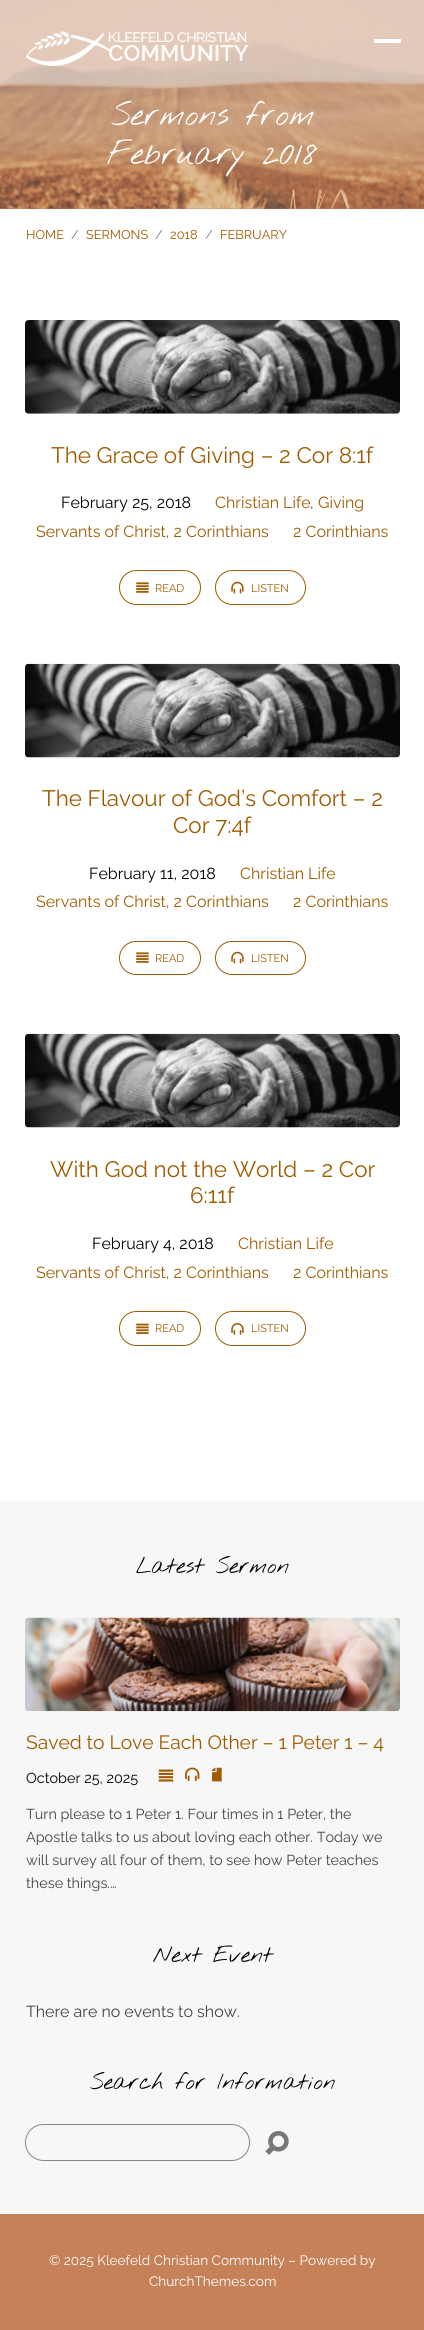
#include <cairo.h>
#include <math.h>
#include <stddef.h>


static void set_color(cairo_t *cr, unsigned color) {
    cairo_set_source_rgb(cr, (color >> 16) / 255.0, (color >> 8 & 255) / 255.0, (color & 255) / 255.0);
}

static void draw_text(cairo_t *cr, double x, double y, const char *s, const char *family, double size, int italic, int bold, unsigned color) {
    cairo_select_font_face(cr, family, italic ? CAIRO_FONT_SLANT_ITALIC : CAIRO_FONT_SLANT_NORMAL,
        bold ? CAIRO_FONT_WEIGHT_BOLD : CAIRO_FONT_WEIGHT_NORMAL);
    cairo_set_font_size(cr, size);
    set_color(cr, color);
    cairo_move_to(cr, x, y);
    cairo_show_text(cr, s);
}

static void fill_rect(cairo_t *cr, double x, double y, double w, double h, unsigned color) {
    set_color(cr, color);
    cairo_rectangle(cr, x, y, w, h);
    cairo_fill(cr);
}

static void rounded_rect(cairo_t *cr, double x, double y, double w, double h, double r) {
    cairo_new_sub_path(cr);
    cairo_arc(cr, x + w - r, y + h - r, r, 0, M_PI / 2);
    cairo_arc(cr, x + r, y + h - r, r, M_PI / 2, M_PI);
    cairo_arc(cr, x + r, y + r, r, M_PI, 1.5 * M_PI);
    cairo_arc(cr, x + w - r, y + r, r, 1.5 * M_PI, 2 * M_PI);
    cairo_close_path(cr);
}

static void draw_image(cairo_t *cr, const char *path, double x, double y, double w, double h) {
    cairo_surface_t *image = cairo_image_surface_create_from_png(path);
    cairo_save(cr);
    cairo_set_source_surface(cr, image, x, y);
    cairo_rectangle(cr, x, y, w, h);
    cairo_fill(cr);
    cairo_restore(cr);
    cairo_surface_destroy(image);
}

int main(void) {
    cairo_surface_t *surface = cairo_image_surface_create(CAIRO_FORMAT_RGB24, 424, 2330);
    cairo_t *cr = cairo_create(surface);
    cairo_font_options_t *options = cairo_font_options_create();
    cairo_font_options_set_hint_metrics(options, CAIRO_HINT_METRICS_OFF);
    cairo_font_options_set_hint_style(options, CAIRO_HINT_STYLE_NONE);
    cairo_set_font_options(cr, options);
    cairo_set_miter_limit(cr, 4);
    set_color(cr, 0xFFFFFF);
    cairo_paint(cr);
    fill_rect(cr, 0, 0, 424, 209, 0xC68159);
    draw_image(cr, "assets/img2.png", 0, 0, 424, 209);
    draw_image(cr, "assets/img1.png", 25, 31, 224, 35);
    fill_rect(cr, 374, 39, 27, 4, 0xFFFFFF);
    draw_text(cr, 111, 125, "Sermons from", "Nothing You Could Do Thin", 32, 0, 0, 0xFFFFFF);
    draw_text(cr, 107, 164, "February 2018", "Nothing You Could Do Thin", 32, 0, 0, 0xFFFFFF);
    draw_text(cr, 26, 239, "HOME", "Raleway", 12.75, 0, 0, 0xA05B00);
    draw_text(cr, 71, 239, "/", "Raleway", 12.75, 0, 0, 0x777777);
    draw_text(cr, 86, 239, "SERMONS", "Raleway", 12.75, 0, 0, 0xA05B00);
    draw_text(cr, 155, 239, "/", "Raleway", 12.75, 0, 0, 0x777777);
    draw_text(cr, 170, 239, "2018", "Raleway", 12.75, 0, 0, 0xA05B00);
    draw_text(cr, 205, 239, "/", "Raleway", 12.75, 0, 0, 0x777777);
    draw_text(cr, 220, 239, "FEBRUARY", "Raleway", 12.75, 0, 0, 0xA05B00);
    draw_image(cr, "assets/img3.png", 25, 320, 375, 94);
    draw_text(cr, 51, 463, "The Grace of Giving – 2 Cor 8:1f", "Raleway", 22.4, 0, 0, 0xA05B00);
    draw_text(cr, 61, 508, "February 25, 2018", "Raleway", 16, 0, 0, 0x000000);
    draw_text(cr, 215, 508, "Christian Life", "Raleway", 16, 0, 0, 0xA05B00);
    draw_text(cr, 310, 508, ",", "Raleway", 16, 0, 0, 0x444444);
    draw_text(cr, 318, 508, "Giving", "Raleway", 16, 0, 0, 0xA05B00);
    draw_text(cr, 36, 537, "Servants of Christ, 2 Corinthians", "Raleway", 16, 0, 0, 0xA05B00);
    draw_text(cr, 293, 537, "2 Corinthians", "Raleway", 16, 0, 0, 0xA05B00);
    rounded_rect(cr, 119.5, 570.5, 81, 34, 17);
    cairo_set_line_width(cr, 1);
    cairo_stroke(cr);
    draw_image(cr, "assets/img4.png", 136, 582, 13, 11);
    draw_text(cr, 155, 592, "READ", "Raleway", 11, 0, 0, 0xA05B00);
    rounded_rect(cr, 215.5, 570.5, 90, 34, 17);
    cairo_stroke(cr);
    draw_image(cr, "assets/img5.png", 231, 581, 13, 13);
    draw_text(cr, 251, 592, "LISTEN", "Raleway", 11, 0, 0, 0xA05B00);
    draw_image(cr, "assets/img6.png", 25, 663, 375, 95);
    draw_text(cr, 42, 806, "The Flavour of God’s Comfort – 2", "Raleway", 22.4, 0, 0, 0xA05B00);
    draw_text(cr, 173, 833, "Cor 7:4f", "Raleway", 22.4, 0, 0, 0xA05B00);
    draw_text(cr, 89, 879, "February 11, 2018", "Raleway", 16, 0, 0, 0x000000);
    draw_text(cr, 240, 879, "Christian Life", "Raleway", 16, 0, 0, 0xA05B00);
    draw_text(cr, 36, 907, "Servants of Christ, 2 Corinthians", "Raleway", 16, 0, 0, 0xA05B00);
    draw_text(cr, 293, 907, "2 Corinthians", "Raleway", 16, 0, 0, 0xA05B00);
    rounded_rect(cr, 119.5, 941.5, 81, 33, 16.5);
    cairo_stroke(cr);
    draw_image(cr, "assets/img4.png", 136, 952, 13, 11);
    draw_text(cr, 155, 962, "READ", "Raleway", 11, 0, 0, 0xA05B00);
    rounded_rect(cr, 215.5, 941.5, 90, 33, 16.5);
    cairo_stroke(cr);
    draw_image(cr, "assets/img5.png", 231, 951, 13, 13);
    draw_text(cr, 251, 962, "LISTEN", "Raleway", 11, 0, 0, 0xA05B00);
    draw_image(cr, "assets/img6.png", 25, 1033, 375, 95);
    draw_text(cr, 50, 1177, "With God not the World – 2 Cor", "Raleway", 22.4, 0, 0, 0xA05B00);
    draw_text(cr, 190, 1203, "6:11f", "Raleway", 22.4, 0, 0, 0xA05B00);
    draw_text(cr, 92, 1249, "February 4, 2018", "Raleway", 16, 0, 0, 0x000000);
    draw_text(cr, 238, 1249, "Christian Life", "Raleway", 16, 0, 0, 0xA05B00);
    draw_text(cr, 36, 1278, "Servants of Christ, 2 Corinthians", "Raleway", 16, 0, 0, 0xA05B00);
    draw_text(cr, 293, 1278, "2 Corinthians", "Raleway", 16, 0, 0, 0xA05B00);
    rounded_rect(cr, 119.5, 1311.5, 81, 34, 17);
    cairo_stroke(cr);
    draw_image(cr, "assets/img7.png", 136, 1323, 13, 11);
    draw_text(cr, 155, 1332, "READ", "Raleway", 11, 0, 0, 0xA05B00);
    rounded_rect(cr, 215.5, 1311.5, 90, 34, 17);
    cairo_stroke(cr);
    draw_image(cr, "assets/img8.png", 231, 1323, 13, 12);
    draw_text(cr, 251, 1332, "LISTEN", "Raleway", 11, 0, 0, 0xA05B00);
    fill_rect(cr, 0, 1501, 424, 713, 0xF7F7F7);
    draw_text(cr, 136, 1573, "Latest Sermon", "Nothing You Could Do Thin", 22.4, 0, 0, 0x000000);
    draw_image(cr, "assets/img9.png", 25, 1617, 375, 95);
    draw_text(cr, 26, 1749, "Saved to Love Each Other – 1 Peter 1 – 4", "Raleway", 19.25, 0, 0, 0xA05B00);
    draw_text(cr, 26, 1783, "October 25, 2025", "Raleway", 14.4, 0, 0, 0x000000);
    draw_image(cr, "assets/img10.png", 158, 1769, 16, 13);
    draw_image(cr, "assets/img11.png", 185, 1767, 15, 15);
    draw_image(cr, "assets/img12.png", 212, 1767, 10, 15);
    draw_text(cr, 26, 1819, "Turn please to 1 Peter 1. Four times in 1 Peter, the", "Raleway", 14.4, 0, 0, 0x444444);
    draw_text(cr, 26, 1842, "Apostle talks to us about loving each other. Today we", "Raleway", 14.4, 0, 0, 0x444444);
    draw_text(cr, 26, 1865, "will survey all four of them, to see how Peter teaches", "Raleway", 14.4, 0, 0, 0x444444);
    draw_text(cr, 26, 1888, "these things.…", "Raleway", 14.4, 0, 0, 0x444444);
    draw_text(cr, 153, 1962, "Next Event", "Nothing You Could Do Thin", 22.4, 0, 0, 0x000000);
    draw_text(cr, 26, 2017, "There are no events to show.", "Raleway", 16, 0, 0, 0x444444);
    draw_text(cr, 90, 2089, "Search for Information", "Nothing You Could Do Thin", 22.4, 0, 0, 0x000000);
    rounded_rect(cr, 25.5, 2124.5, 224, 36, 18);
    set_color(cr, 0x888888);
    cairo_stroke(cr);
    draw_image(cr, "assets/img13.png", 265, 2131, 24, 24);
    fill_rect(cr, 0, 2214, 424, 116, 0xC68159);
    draw_text(cr, 49, 2265, "© 2025 Kleefeld Christian Community – Powered by", "Raleway", 13.6, 0, 0, 0xFFFFFF);
    draw_text(cr, 149, 2286, "ChurchThemes.com", "Raleway", 13.6, 0, 0, 0xFFFFFF);
    cairo_surface_write_to_png(surface, "output.png");
    cairo_font_options_destroy(options);
    cairo_destroy(cr);
    cairo_surface_destroy(surface);
    return 0;
}
